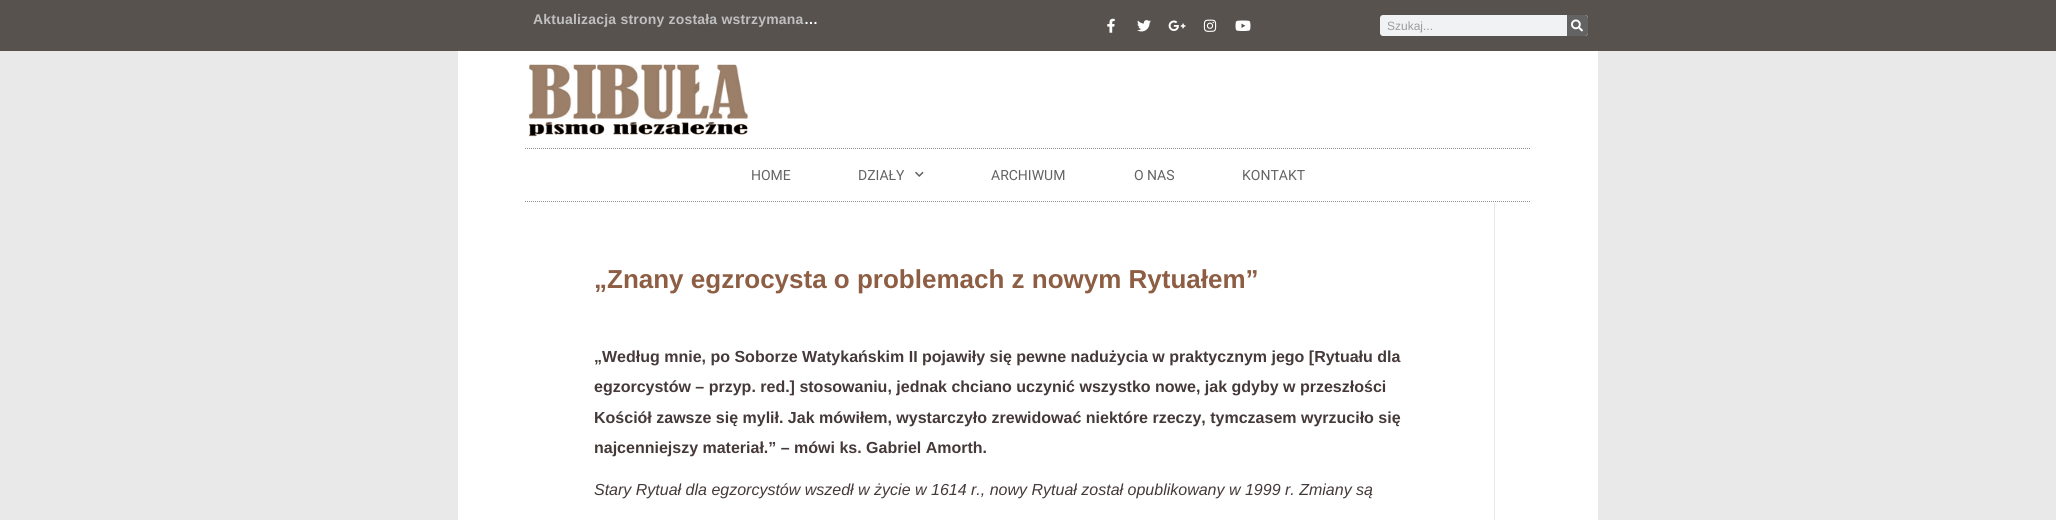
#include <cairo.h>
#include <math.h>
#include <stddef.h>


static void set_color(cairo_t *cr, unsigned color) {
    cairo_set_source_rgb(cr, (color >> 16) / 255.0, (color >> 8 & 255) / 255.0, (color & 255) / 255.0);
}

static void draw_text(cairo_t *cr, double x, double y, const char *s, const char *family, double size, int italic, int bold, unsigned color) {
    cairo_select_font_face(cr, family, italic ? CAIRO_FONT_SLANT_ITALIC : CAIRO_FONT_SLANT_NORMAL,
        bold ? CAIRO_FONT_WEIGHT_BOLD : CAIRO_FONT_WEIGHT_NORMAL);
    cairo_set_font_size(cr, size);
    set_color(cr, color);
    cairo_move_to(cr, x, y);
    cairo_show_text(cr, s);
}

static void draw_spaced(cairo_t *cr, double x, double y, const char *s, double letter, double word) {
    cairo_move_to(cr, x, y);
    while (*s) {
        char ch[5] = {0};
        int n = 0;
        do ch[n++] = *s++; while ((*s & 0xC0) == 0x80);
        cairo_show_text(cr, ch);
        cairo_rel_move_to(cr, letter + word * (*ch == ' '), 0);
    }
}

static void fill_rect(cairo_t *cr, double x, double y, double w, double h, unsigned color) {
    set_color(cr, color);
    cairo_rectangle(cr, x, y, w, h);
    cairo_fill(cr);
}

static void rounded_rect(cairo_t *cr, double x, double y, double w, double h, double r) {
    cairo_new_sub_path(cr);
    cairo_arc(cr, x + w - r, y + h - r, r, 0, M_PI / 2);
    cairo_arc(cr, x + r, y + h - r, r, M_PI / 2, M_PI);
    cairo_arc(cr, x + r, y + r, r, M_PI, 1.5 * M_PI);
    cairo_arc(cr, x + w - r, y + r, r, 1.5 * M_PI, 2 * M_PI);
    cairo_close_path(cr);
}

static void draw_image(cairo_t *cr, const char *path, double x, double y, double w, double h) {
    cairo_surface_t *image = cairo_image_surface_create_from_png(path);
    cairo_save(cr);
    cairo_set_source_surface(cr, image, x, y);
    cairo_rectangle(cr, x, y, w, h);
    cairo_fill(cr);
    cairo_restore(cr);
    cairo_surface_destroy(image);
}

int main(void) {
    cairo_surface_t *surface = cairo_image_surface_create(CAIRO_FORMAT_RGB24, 2056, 520);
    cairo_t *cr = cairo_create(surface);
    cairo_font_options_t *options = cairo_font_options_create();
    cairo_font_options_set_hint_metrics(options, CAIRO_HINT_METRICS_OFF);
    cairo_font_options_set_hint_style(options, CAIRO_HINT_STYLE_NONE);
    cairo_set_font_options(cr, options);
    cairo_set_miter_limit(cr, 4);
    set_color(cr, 0x57524E);
    cairo_paint(cr);
    cairo_select_font_face(cr, "Liberation Sans", CAIRO_FONT_SLANT_NORMAL, CAIRO_FONT_WEIGHT_BOLD);
    cairo_set_font_size(cr, 14);
    set_color(cr, 0xBFBFBF);
    draw_spaced(cr, 533, 24, "Aktualizacja strony została wstrzymana", 0.2, 0);
    set_color(cr, 0xFFFFFF);
    draw_spaced(cr, 804, 24, "…", 0.2, 0);
    draw_image(cr, "assets/img1.png", 1107, 18, 8, 15);
    draw_image(cr, "assets/img2.png", 1137, 20, 14, 12);
    draw_image(cr, "assets/img3.png", 1168, 20, 18, 11);
    draw_image(cr, "assets/img4.png", 1203, 19, 14, 13);
    draw_image(cr, "assets/img5.png", 1235, 20, 16, 11);
    set_color(cr, 0xF1F2F3);
    rounded_rect(cr, 1380, 15, 208, 21, 3);
    cairo_fill(cr);
    draw_text(cr, 1387, 30, "Szukaj...", "Liberation Sans", 12, 0, 0, 0x9C9C9D);
    set_color(cr, 0x636363);
    cairo_new_path(cr);
    cairo_move_to(cr, 1567, 15);
    cairo_line_to(cr, 1585, 15);
    cairo_curve_to(cr, 1586.5, 15, 1588, 16.5, 1588, 18);
    cairo_line_to(cr, 1588, 33);
    cairo_curve_to(cr, 1588, 34.5, 1586.5, 36, 1585, 36);
    cairo_line_to(cr, 1567, 36);
    cairo_close_path(cr);
    cairo_fill(cr);
    draw_image(cr, "assets/img6.png", 1571, 19, 12, 13);
    fill_rect(cr, 0, 51, 2056, 469, 0xEAE9E9);
    fill_rect(cr, 458, 51, 1140, 100, 0xFFFFFF);
    draw_image(cr, "assets/img7.png", 528, 64, 221, 73);
    fill_rect(cr, 458, 151, 1140, 52, 0xFFFFFF);
    cairo_new_path(cr);
    cairo_move_to(cr, 525, 148.5);
    cairo_line_to(cr, 1531, 148.5);
    set_color(cr, 0x8E8E8E);
    cairo_set_line_width(cr, 1);
    cairo_set_dash(cr, (double[]){1, 1}, 2, 0);
    cairo_stroke(cr);
    cairo_new_path(cr);
    cairo_move_to(cr, 525, 201.5);
    cairo_line_to(cr, 1531, 201.5);
    cairo_stroke(cr);
    draw_text(cr, 751, 180, "HOME", "Roboto", 14, 0, 0, 0x636363);
    draw_text(cr, 858, 180, "DZIAŁY", "Roboto", 14, 0, 0, 0x636363);
    draw_image(cr, "assets/img8.png", 915, 171, 9, 6);
    draw_text(cr, 991, 180, "ARCHIWUM", "Roboto", 14, 0, 0, 0x636363);
    draw_text(cr, 1134, 180, "O NAS", "Roboto", 14, 0, 0, 0x636363);
    draw_text(cr, 1242, 180, "KONTAKT", "Roboto", 14, 0, 0, 0x636363);
    fill_rect(cr, 458, 203, 1036, 317, 0xFFFFFF);
    fill_rect(cr, 1495, 203, 103, 317, 0xFFFFFF);
    draw_text(cr, 594, 288, "„Znany egzrocysta o problemach z nowym Rytuałem”", "Liberation Sans", 26, 0, 1, 0x8D5E43);
    draw_text(cr, 594, 362, "„Według mnie, po Soborze Watykańskim II pojawiły się pewne nadużycia w praktycznym jego [Rytuału dla", "Liberation Sans", 16, 0, 1, 0x453939);
    draw_text(cr, 594, 392, "egzorcystów – przyp. red.] stosowaniu, jednak chciano uczynić wszystko nowe, jak gdyby w przeszłości", "Liberation Sans", 16, 0, 1, 0x453939);
    draw_text(cr, 594, 423, "Kościół zawsze się mylił. Jak mówiłem, wystarczyło zrewidować niektóre rzeczy, tymczasem wyrzuciło się", "Liberation Sans", 16, 0, 1, 0x453939);
    draw_text(cr, 594, 453, "najcenniejszy materiał.” – mówi ks. Gabriel Amorth.", "Liberation Sans", 16, 0, 1, 0x453939);
    draw_text(cr, 594, 495, "Stary Rytuał dla egzorcystów wszedł w życie w 1614 r., nowy Rytuał został opublikowany w 1999 r. Zmiany są", "Liberation Sans", 16, 1, 0, 0x453939);
    cairo_surface_write_to_png(surface, "output.png");
    cairo_font_options_destroy(options);
    cairo_destroy(cr);
    cairo_surface_destroy(surface);
    return 0;
}
